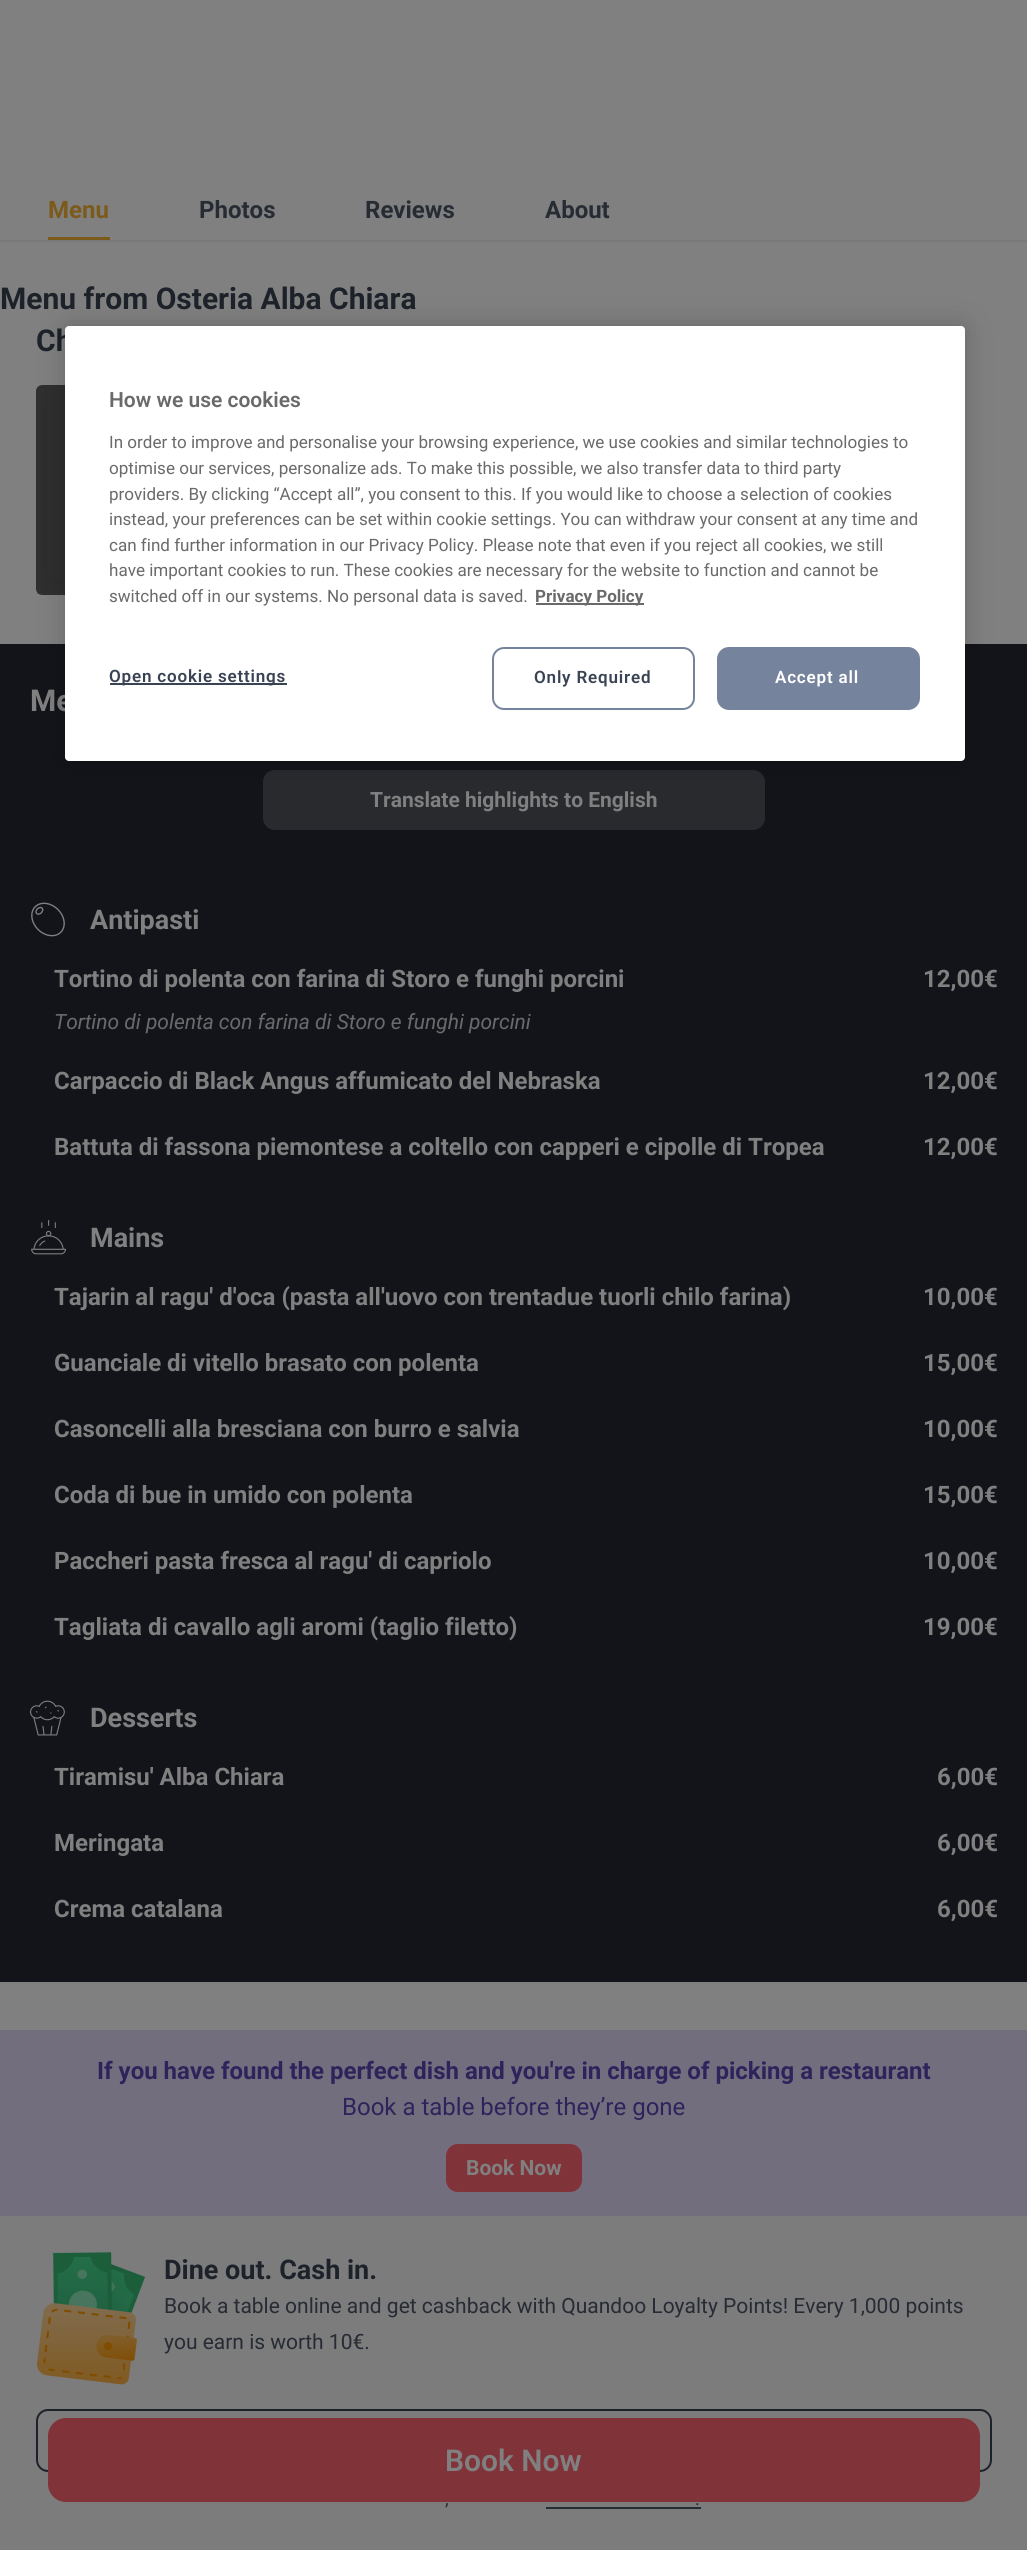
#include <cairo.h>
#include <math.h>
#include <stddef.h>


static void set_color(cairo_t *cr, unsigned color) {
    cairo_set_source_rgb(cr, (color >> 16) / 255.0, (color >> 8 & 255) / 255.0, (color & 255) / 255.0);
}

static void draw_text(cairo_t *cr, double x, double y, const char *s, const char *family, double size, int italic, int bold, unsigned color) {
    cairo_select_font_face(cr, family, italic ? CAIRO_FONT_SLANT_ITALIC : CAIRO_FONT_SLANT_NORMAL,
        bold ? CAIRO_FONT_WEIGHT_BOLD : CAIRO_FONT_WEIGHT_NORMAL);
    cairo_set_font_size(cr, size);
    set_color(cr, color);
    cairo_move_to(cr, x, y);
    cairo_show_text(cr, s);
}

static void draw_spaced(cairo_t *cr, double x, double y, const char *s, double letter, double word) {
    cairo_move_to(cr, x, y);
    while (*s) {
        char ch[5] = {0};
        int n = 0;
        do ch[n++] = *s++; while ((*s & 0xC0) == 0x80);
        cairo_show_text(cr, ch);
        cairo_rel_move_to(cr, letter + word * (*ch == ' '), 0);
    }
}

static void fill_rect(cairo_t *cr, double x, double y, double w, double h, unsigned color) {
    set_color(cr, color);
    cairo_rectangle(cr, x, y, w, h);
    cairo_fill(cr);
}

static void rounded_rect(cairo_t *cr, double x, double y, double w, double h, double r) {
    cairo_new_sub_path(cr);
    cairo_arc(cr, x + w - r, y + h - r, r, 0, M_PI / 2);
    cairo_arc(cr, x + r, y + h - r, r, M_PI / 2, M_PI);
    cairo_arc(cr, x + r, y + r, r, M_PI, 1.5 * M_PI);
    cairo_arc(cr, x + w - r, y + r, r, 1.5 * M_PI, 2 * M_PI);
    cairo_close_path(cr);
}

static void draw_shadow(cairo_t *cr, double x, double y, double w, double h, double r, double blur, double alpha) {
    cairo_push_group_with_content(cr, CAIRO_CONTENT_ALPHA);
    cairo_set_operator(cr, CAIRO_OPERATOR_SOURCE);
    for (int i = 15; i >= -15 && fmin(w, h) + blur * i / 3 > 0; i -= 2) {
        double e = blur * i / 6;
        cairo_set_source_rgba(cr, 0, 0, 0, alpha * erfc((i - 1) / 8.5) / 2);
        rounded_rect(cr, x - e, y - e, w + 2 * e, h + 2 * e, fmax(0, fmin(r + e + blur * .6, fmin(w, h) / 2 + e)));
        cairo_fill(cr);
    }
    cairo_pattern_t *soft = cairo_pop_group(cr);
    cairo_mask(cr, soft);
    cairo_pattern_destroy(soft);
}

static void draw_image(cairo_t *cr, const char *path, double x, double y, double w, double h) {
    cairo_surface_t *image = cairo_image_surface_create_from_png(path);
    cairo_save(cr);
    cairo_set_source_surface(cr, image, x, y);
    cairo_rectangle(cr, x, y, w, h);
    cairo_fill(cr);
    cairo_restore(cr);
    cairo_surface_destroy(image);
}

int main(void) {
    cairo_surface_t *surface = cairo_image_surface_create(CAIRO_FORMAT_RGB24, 1027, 2550);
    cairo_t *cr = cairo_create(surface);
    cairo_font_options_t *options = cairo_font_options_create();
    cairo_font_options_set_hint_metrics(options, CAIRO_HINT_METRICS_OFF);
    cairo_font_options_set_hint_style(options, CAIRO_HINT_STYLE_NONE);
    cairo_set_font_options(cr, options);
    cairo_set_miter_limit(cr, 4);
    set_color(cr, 0x808080);
    cairo_paint(cr);
    fill_rect(cr, 0, 240, 1027, 2, 0x78797B);
    draw_text(cr, 48, 218, "Menu", "Roboto", 24, 0, 1, 0x7C5A1A);
    fill_rect(cr, 48, 237, 62, 3, 0x7C5A1A);
    draw_text(cr, 199, 218, "Photos", "Roboto", 24, 0, 1, 0x272B33);
    draw_text(cr, 365, 218, "Reviews", "Roboto", 24, 0, 1, 0x272B33);
    draw_text(cr, 545, 218, "About", "Roboto", 24, 0, 1, 0x272B33);
    draw_text(cr, 0, 309, "Menu from Osteria Alba Chiara", "Roboto", 30, 0, 1, 0x1D222A);
    draw_text(cr, 36, 351, "Ch", "Roboto", 30, 0, 1, 0x1D222A);
    draw_image(cr, "assets/img1.png", 36, 385, 29, 210);
    fill_rect(cr, 0, 644, 1027, 1338, 0x12141A);
    draw_text(cr, 30, 711, "Me", "Roboto", 30, 0, 1, 0x808080);
    set_color(cr, 0x282A2E);
    rounded_rect(cr, 263, 770, 502, 60, 12);
    cairo_fill(cr);
    draw_text(cr, 370, 807, "Translate highlights to English", "Roboto", 21, 0, 1, 0x808080);
    draw_image(cr, "assets/img2.png", 31, 902, 34, 35);
    draw_text(cr, 90, 929, "Antipasti", "Roboto", 27, 0, 1, 0x808080);
    draw_text(cr, 54, 987, "Tortino di polenta con farina di Storo e funghi porcini", "Roboto", 24, 0, 1, 0x808080);
    draw_text(cr, 54, 1029, "Tortino di polenta con farina di Storo e funghi porcini", "Roboto", 21, 1, 0, 0x6A6A6B);
    draw_text(cr, 923, 987, "12,00€", "Roboto", 24, 0, 1, 0x808080);
    draw_text(cr, 54, 1089, "Carpaccio di Black Angus affumicato del Nebraska", "Roboto", 24, 0, 1, 0x808080);
    draw_text(cr, 923, 1089, "12,00€", "Roboto", 24, 0, 1, 0x808080);
    draw_text(cr, 54, 1155, "Battuta di fassona piemontese a coltello con capperi e cipolle di Tropea", "Roboto", 24, 0, 1, 0x808080);
    draw_text(cr, 923, 1155, "12,00€", "Roboto", 24, 0, 1, 0x808080);
    draw_image(cr, "assets/img3.png", 31, 1220, 35, 35);
    draw_text(cr, 90, 1247, "Mains", "Roboto", 27, 0, 1, 0x808080);
    draw_text(cr, 54, 1305, "Tajarin al ragu' d'oca (pasta all'uovo con trentadue tuorli chilo farina)", "Roboto", 24, 0, 1, 0x808080);
    draw_text(cr, 923, 1305, "10,00€", "Roboto", 24, 0, 1, 0x808080);
    draw_text(cr, 54, 1371, "Guanciale di vitello brasato con polenta", "Roboto", 24, 0, 1, 0x808080);
    draw_text(cr, 923, 1371, "15,00€", "Roboto", 24, 0, 1, 0x808080);
    draw_text(cr, 54, 1437, "Casoncelli alla bresciana con burro e salvia", "Roboto", 24, 0, 1, 0x808080);
    draw_text(cr, 923, 1437, "10,00€", "Roboto", 24, 0, 1, 0x808080);
    draw_text(cr, 54, 1503, "Coda di bue in umido con polenta", "Roboto", 24, 0, 1, 0x808080);
    draw_text(cr, 923, 1503, "15,00€", "Roboto", 24, 0, 1, 0x808080);
    draw_text(cr, 54, 1569, "Paccheri pasta fresca al ragu' di capriolo", "Roboto", 24, 0, 1, 0x808080);
    draw_text(cr, 923, 1569, "10,00€", "Roboto", 24, 0, 1, 0x808080);
    draw_text(cr, 54, 1635, "Tagliata di cavallo agli aromi (taglio filetto)", "Roboto", 24, 0, 1, 0x808080);
    draw_text(cr, 923, 1635, "19,00€", "Roboto", 24, 0, 1, 0x808080);
    draw_image(cr, "assets/img4.png", 30, 1700, 35, 36);
    draw_text(cr, 90, 1727, "Desserts", "Roboto", 27, 0, 1, 0x808080);
    draw_text(cr, 54, 1785, "Tiramisu' Alba Chiara", "Roboto", 24, 0, 1, 0x808080);
    draw_text(cr, 937, 1785, "6,00€", "Roboto", 24, 0, 1, 0x808080);
    draw_text(cr, 54, 1851, "Meringata", "Roboto", 24, 0, 1, 0x808080);
    draw_text(cr, 937, 1851, "6,00€", "Roboto", 24, 0, 1, 0x808080);
    draw_text(cr, 54, 1917, "Crema catalana", "Roboto", 24, 0, 1, 0x808080);
    draw_text(cr, 937, 1917, "6,00€", "Roboto", 24, 0, 1, 0x808080);
    fill_rect(cr, 0, 2030, 1027, 186, 0x736E7E);
    draw_text(cr, 97, 2079, "If you have found the perfect dish and you're in charge of picking a restaurant", "Roboto", 24, 0, 1, 0x2F235B);
    draw_text(cr, 342, 2115, "Book a table before they’re gone", "Roboto", 24, 0, 0, 0x2F235B);
    set_color(cr, 0x803339);
    rounded_rect(cr, 446, 2144, 136, 48, 12);
    cairo_fill(cr);
    draw_text(cr, 466, 2175, "Book Now", "Roboto", 21, 0, 1, 0x808080);
    fill_rect(cr, 0, 2216, 1027, 334, 0x7C7C7D);
    draw_image(cr, "assets/img5.png", 37, 2252, 108, 133);
    draw_text(cr, 164, 2279, "Dine out. Cash in.", "Roboto", 27, 0, 1, 0x1D222A);
    draw_text(cr, 164, 2313, "Book a table online and get cashback with Quandoo Loyalty Points! Every 1,000 points", "Roboto", 21, 0, 0, 0x272B33);
    draw_text(cr, 164, 2349, "you earn is worth 10€.", "Roboto", 21, 0, 0, 0x272B33);
    rounded_rect(cr, 37, 2410, 954, 61, 11);
    set_color(cr, 0x1D222A);
    cairo_stroke(cr);
    draw_text(cr, 445, 2505, ",", "Roboto", 18, 0, 0, 0x272B33);
    draw_text(cr, 695, 2505, ".", "Roboto", 18, 0, 0, 0x272B33);
    fill_rect(cr, 546, 2507, 155, 2, 0x272B33);
    set_color(cr, 0x803339);
    rounded_rect(cr, 48, 2418, 932, 84, 18);
    cairo_fill(cr);
    draw_text(cr, 445, 2471, "Book Now", "Roboto SemiBold", 30, 0, 0, 0x808080);
    set_color(cr, 0x000000);
    draw_shadow(cr, 65, 326, 900, 435, 4, 13.5, 0.2);
    set_color(cr, 0xFFFFFF);
    rounded_rect(cr, 65, 326, 900, 435, 4);
    cairo_fill(cr);
    draw_text(cr, 109, 407, "How we use cookies", "Roboto SemiBold", 21, 0, 0, 0x6A6A6B);
    draw_text(cr, 109, 448, "In order to improve and personalise your browsing experience, we use cookies and similar technologies to", "Roboto", 17.05, 0, 0, 0x6A6A6B);
    draw_text(cr, 109, 474, "optimise our services, personalize ads. To make this possible, we also transfer data to third party", "Roboto", 17.05, 0, 0, 0x6A6A6B);
    draw_text(cr, 109, 500, "providers. By clicking “Accept all”, you consent to this. If you would like to choose a selection of cookies", "Roboto", 17.05, 0, 0, 0x6A6A6B);
    draw_text(cr, 109, 525, "instead, your preferences can be set within cookie settings. You can withdraw your consent at any time and", "Roboto", 17.05, 0, 0, 0x6A6A6B);
    draw_text(cr, 109, 551, "can find further information in our Privacy Policy. Please note that even if you reject all cookies, we still", "Roboto", 17.05, 0, 0, 0x6A6A6B);
    draw_text(cr, 109, 576, "have important cookies to run. These cookies are necessary for the website to function and cannot be", "Roboto", 17.05, 0, 0, 0x6A6A6B);
    draw_text(cr, 109, 602, "switched off in our systems. No personal data is saved.", "Roboto", 17.05, 0, 0, 0x6A6A6B);
    fill_rect(cr, 536, 603, 108, 2, 0x696969);
    draw_text(cr, 535, 602, "Privacy Policy", "Roboto", 17.05, 0, 1, 0x6A6A6B);
    fill_rect(cr, 110, 683, 177, 2, 0x3A4354);
    cairo_select_font_face(cr, "Roboto SemiBold", CAIRO_FONT_SLANT_NORMAL, CAIRO_FONT_WEIGHT_NORMAL);
    draw_spaced(cr, 109, 682, "Open cookie settings", 0.8, 0);
    rounded_rect(cr, 493, 648, 201, 61, 11);
    set_color(cr, 0x76839C);
    cairo_stroke(cr);
    set_color(cr, 0x3A4354);
    draw_spaced(cr, 534, 683, "Only Required", 0.8, 0);
    set_color(cr, 0x76839C);
    rounded_rect(cr, 718, 648, 201, 61, 11);
    cairo_fill_preserve(cr);
    cairo_stroke(cr);
    set_color(cr, 0xFFFFFF);
    draw_spaced(cr, 775, 683, "Accept all", 0.8, 0);
    cairo_surface_write_to_png(surface, "output.png");
    cairo_font_options_destroy(options);
    cairo_destroy(cr);
    cairo_surface_destroy(surface);
    return 0;
}
